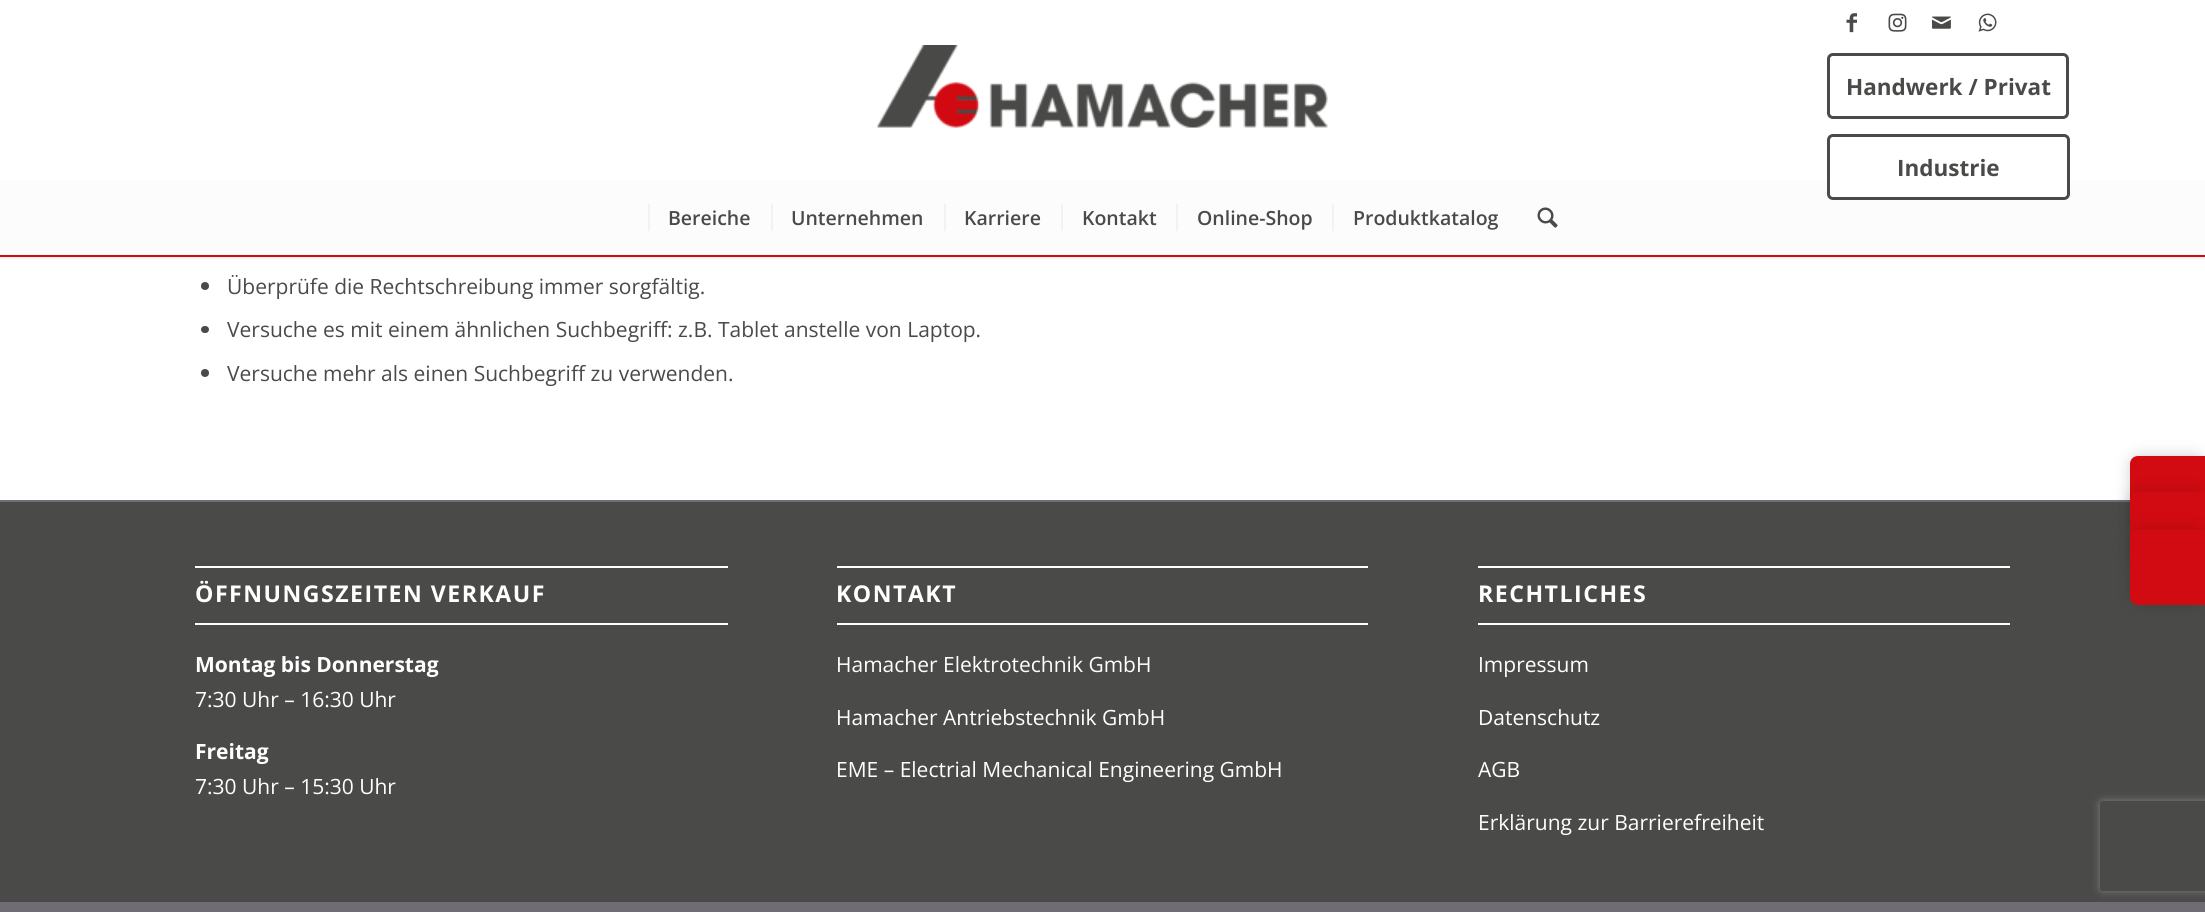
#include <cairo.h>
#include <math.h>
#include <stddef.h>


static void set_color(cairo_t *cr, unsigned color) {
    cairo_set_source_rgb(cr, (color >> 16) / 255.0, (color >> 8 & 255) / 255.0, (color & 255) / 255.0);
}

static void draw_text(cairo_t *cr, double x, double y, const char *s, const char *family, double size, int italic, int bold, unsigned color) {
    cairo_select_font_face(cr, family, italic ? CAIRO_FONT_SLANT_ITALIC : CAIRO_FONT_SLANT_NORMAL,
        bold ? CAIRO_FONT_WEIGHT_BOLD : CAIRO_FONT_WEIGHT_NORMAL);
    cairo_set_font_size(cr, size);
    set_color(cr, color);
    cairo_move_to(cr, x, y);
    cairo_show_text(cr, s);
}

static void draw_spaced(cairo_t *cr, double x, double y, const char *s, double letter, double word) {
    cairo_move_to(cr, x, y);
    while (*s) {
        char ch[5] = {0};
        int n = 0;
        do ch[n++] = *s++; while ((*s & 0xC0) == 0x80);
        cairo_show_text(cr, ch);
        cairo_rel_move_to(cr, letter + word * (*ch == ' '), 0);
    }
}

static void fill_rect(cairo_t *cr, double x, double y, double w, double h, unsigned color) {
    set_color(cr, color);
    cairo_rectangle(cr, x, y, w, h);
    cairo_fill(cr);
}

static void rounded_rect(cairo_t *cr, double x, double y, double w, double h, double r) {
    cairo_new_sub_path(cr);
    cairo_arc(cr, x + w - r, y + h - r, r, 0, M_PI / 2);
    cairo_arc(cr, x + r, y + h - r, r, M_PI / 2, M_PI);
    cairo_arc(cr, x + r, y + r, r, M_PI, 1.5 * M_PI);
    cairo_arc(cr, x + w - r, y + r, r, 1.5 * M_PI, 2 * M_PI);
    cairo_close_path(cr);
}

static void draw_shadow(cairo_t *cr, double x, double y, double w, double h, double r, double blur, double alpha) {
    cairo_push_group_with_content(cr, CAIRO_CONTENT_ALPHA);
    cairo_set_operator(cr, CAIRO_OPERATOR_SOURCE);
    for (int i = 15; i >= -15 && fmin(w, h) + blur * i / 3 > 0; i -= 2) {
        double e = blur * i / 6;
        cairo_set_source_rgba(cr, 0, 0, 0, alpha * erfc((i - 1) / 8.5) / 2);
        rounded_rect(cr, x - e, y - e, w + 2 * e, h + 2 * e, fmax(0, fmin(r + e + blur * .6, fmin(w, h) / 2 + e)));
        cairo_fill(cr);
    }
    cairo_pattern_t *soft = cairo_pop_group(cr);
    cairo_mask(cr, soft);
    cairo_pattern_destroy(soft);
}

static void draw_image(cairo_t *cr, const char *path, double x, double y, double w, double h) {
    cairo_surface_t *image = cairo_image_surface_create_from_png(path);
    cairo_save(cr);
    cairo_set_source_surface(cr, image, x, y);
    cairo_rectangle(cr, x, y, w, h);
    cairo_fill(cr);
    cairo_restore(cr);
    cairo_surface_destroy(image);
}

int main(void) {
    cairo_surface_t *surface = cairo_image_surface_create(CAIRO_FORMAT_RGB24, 2205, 912);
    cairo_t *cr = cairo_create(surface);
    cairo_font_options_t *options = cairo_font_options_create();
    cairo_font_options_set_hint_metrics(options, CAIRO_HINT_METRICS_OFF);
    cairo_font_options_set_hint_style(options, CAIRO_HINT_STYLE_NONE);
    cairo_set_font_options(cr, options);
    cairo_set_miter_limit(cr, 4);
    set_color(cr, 0xFFFFFF);
    cairo_paint(cr);
    set_color(cr, 0x000000);
    draw_shadow(cr, -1, -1, 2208, 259, 0, 1.5, 0.1);
    fill_rect(cr, 0, 255, 2205, 2, 0xD20A10);
    fill_rect(cr, 0, 0, 2205, 180, 0xFFFFFF);
    draw_image(cr, "assets/img1.png", 1846, 13, 11, 20);
    draw_image(cr, "assets/img2.png", 1888, 13, 19, 19);
    draw_image(cr, "assets/img3.png", 1932, 16, 19, 13);
    draw_image(cr, "assets/img4.png", 1978, 13, 19, 19);
    rounded_rect(cr, 1828.5, 54.5, 239, 63, 4.5);
    set_color(cr, 0x4A4A49);
    cairo_set_line_width(cr, 3);
    cairo_stroke(cr);
    draw_text(cr, 1846, 95, "Handwerk / Privat", "Open Sans", 22.5, 0, 1, 0x4A4A49);
    fill_rect(cr, 0, 180, 2205, 75, 0xFCFCFC);
    set_color(cr, 0xFFFFFF);
    rounded_rect(cr, 1828.5, 135.5, 240, 63, 4.5);
    cairo_fill_preserve(cr);
    set_color(cr, 0x4A4A49);
    cairo_stroke(cr);
    draw_text(cr, 1897, 176, "Industrie", "Open Sans", 22.5, 0, 1, 0x4A4A49);
    draw_image(cr, "assets/img5.png", 877, 45, 451, 83);
    draw_text(cr, 668, 225, "Bereiche", "Open Sans SemiBold", 19.5, 0, 0, 0x4A4A49);
    fill_rect(cr, 648, 204, 2, 27, 0xF2F2F2);
    draw_text(cr, 791, 225, "Unternehmen", "Open Sans SemiBold", 19.5, 0, 0, 0x4A4A49);
    fill_rect(cr, 771, 204, 2, 27, 0xF2F2F2);
    draw_text(cr, 964, 225, "Karriere", "Open Sans SemiBold", 19.5, 0, 0, 0x4A4A49);
    fill_rect(cr, 944, 204, 2, 27, 0xF2F2F2);
    draw_text(cr, 1082, 225, "Kontakt", "Open Sans SemiBold", 19.5, 0, 0, 0x4A4A49);
    fill_rect(cr, 1061, 204, 2, 27, 0xF2F2F2);
    draw_text(cr, 1197, 225, "Online-Shop", "Open Sans SemiBold", 19.5, 0, 0, 0x4A4A49);
    fill_rect(cr, 1176, 204, 2, 27, 0xF2F2F2);
    draw_text(cr, 1353, 225, "Produktkatalog", "Open Sans SemiBold", 19.5, 0, 0, 0x4A4A49);
    fill_rect(cr, 1332, 204, 2, 27, 0xF2F2F2);
    draw_image(cr, "assets/img6.png", 1537, 207, 21, 21);
    set_color(cr, 0x4A4A49);
    cairo_arc(cr, 205, 286, 4, 0, 2 * M_PI);
    cairo_fill(cr);
    draw_text(cr, 227, 294, "Überprüfe die Rechtschreibung immer sorgfältig.", "Open Sans", 21, 0, 0, 0x4A4A49);
    rounded_rect(cr, 201, 326, 8, 7, 3.5);
    cairo_fill(cr);
    draw_text(cr, 227, 337, "Versuche es mit einem ähnlichen Suchbegriff: z.B. Tablet anstelle von Laptop.", "Open Sans", 21, 0, 0, 0x4A4A49);
    cairo_new_path(cr);
    cairo_arc(cr, 205, 373, 4, 0, 2 * M_PI);
    cairo_fill(cr);
    draw_text(cr, 227, 381, "Versuche mehr als einen Suchbegriff zu verwenden.", "Open Sans", 21, 0, 0, 0x4A4A49);
    fill_rect(cr, 0, 502, 2205, 400, 0x4A4A49);
    fill_rect(cr, 0, 500, 2130, 2, 0x6F6C74);
    fill_rect(cr, 195, 566, 533, 2, 0xFFFFFF);
    fill_rect(cr, 195, 623, 533, 2, 0xFFFFFF);
    cairo_select_font_face(cr, "Open Sans", CAIRO_FONT_SLANT_NORMAL, CAIRO_FONT_WEIGHT_BOLD);
    cairo_set_font_size(cr, 23.1);
    draw_spaced(cr, 195, 602, "ÖFFNUNGSZEITEN VERKAUF", 1.5, 0);
    draw_text(cr, 195, 672, "Montag bis Donnerstag", "Open Sans", 21, 0, 1, 0xFFFFFF);
    draw_text(cr, 195, 707, "7:30 Uhr – 16:30 Uhr", "Open Sans", 21, 0, 0, 0xFFFFFF);
    draw_text(cr, 195, 759, "Freitag", "Open Sans", 21, 0, 1, 0xFFFFFF);
    draw_text(cr, 195, 794, "7:30 Uhr – 15:30 Uhr", "Open Sans", 21, 0, 0, 0xFFFFFF);
    fill_rect(cr, 837, 566, 531, 2, 0xFFFFFF);
    fill_rect(cr, 837, 623, 531, 2, 0xFFFFFF);
    cairo_select_font_face(cr, "Open Sans", CAIRO_FONT_SLANT_NORMAL, CAIRO_FONT_WEIGHT_BOLD);
    cairo_set_font_size(cr, 23.1);
    draw_spaced(cr, 836, 602, "KONTAKT", 1.5, 0);
    draw_text(cr, 836, 672, "Hamacher Elektrotechnik GmbH", "Open Sans", 21, 0, 0, 0xFFFFFF);
    draw_text(cr, 836, 725, "Hamacher Antriebstechnik GmbH", "Open Sans", 21, 0, 0, 0xFFFFFF);
    draw_text(cr, 836, 777, "EME – Electrial Mechanical Engineering GmbH", "Open Sans", 21, 0, 0, 0xFFFFFF);
    fill_rect(cr, 1478, 566, 532, 2, 0xFFFFFF);
    fill_rect(cr, 1478, 623, 532, 2, 0xFFFFFF);
    cairo_select_font_face(cr, "Open Sans", CAIRO_FONT_SLANT_NORMAL, CAIRO_FONT_WEIGHT_BOLD);
    cairo_set_font_size(cr, 23.1);
    draw_spaced(cr, 1478, 602, "RECHTLICHES", 1.5, 0);
    draw_text(cr, 1478, 672, "Impressum", "Open Sans", 21, 0, 0, 0xFFFFFF);
    draw_text(cr, 1478, 725, "Datenschutz", "Open Sans", 21, 0, 0, 0xFFFFFF);
    draw_text(cr, 1478, 777, "AGB", "Open Sans", 21, 0, 0, 0xFFFFFF);
    draw_text(cr, 1478, 830, "Erklärung zur Barrierefreiheit", "Open Sans", 21, 0, 0, 0xFFFFFF);
    fill_rect(cr, 0, 902, 2205, 10, 0x6F6C74);
    set_color(cr, 0x131313);
    draw_shadow(cr, 2130, 456, 75, 75, 11, 7.5, 0.2);
    set_color(cr, 0xD20A11);
    cairo_new_path(cr);
    cairo_move_to(cr, 2138, 456);
    cairo_line_to(cr, 2205, 456);
    cairo_line_to(cr, 2205, 531);
    cairo_line_to(cr, 2138, 531);
    cairo_curve_to(cr, 2133.5, 531, 2130, 527.5, 2130, 523);
    cairo_line_to(cr, 2130, 464);
    cairo_curve_to(cr, 2130, 459.5, 2133.5, 456, 2138, 456);
    cairo_close_path(cr);
    cairo_fill(cr);
    set_color(cr, 0x131313);
    draw_shadow(cr, 2130, 492, 75, 75, 11, 7.5, 0.2);
    set_color(cr, 0xD20A11);
    cairo_new_path(cr);
    cairo_move_to(cr, 2138, 492);
    cairo_line_to(cr, 2205, 492);
    cairo_line_to(cr, 2205, 567);
    cairo_line_to(cr, 2138, 567);
    cairo_curve_to(cr, 2133.5, 567, 2130, 563.5, 2130, 559);
    cairo_line_to(cr, 2130, 500);
    cairo_curve_to(cr, 2130, 495.5, 2133.5, 492, 2138, 492);
    cairo_close_path(cr);
    cairo_fill(cr);
    set_color(cr, 0x131313);
    draw_shadow(cr, 2130, 530, 75, 75, 11, 7.5, 0.2);
    set_color(cr, 0xD20A11);
    cairo_new_path(cr);
    cairo_move_to(cr, 2138, 530);
    cairo_line_to(cr, 2205, 530);
    cairo_line_to(cr, 2205, 605);
    cairo_line_to(cr, 2138, 605);
    cairo_curve_to(cr, 2133.5, 605, 2130, 601.5, 2130, 597);
    cairo_line_to(cr, 2130, 538);
    cairo_curve_to(cr, 2130, 533.5, 2133.5, 530, 2138, 530);
    cairo_close_path(cr);
    cairo_fill(cr);
    cairo_save(cr);
    cairo_set_fill_rule(cr, CAIRO_FILL_RULE_EVEN_ODD);
    cairo_new_path(cr);
    cairo_move_to(cr, 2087, 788);
    cairo_line_to(cr, 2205, 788);
    cairo_line_to(cr, 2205, 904);
    cairo_line_to(cr, 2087, 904);
    cairo_close_path(cr);
    cairo_move_to(cr, 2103, 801);
    cairo_line_to(cr, 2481, 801);
    cairo_curve_to(cr, 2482.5, 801, 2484, 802.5, 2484, 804);
    cairo_line_to(cr, 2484, 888);
    cairo_curve_to(cr, 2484, 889.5, 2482.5, 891, 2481, 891);
    cairo_line_to(cr, 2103, 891);
    cairo_curve_to(cr, 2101.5, 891, 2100, 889.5, 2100, 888);
    cairo_line_to(cr, 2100, 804);
    cairo_curve_to(cr, 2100, 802.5, 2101.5, 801, 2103, 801);
    cairo_close_path(cr);
    cairo_clip(cr);
    set_color(cr, 0x808080);
    draw_shadow(cr, 2100, 801, 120, 90, 3, 4, 1);
    cairo_restore(cr);
    cairo_surface_write_to_png(surface, "output.png");
    cairo_font_options_destroy(options);
    cairo_destroy(cr);
    cairo_surface_destroy(surface);
    return 0;
}
